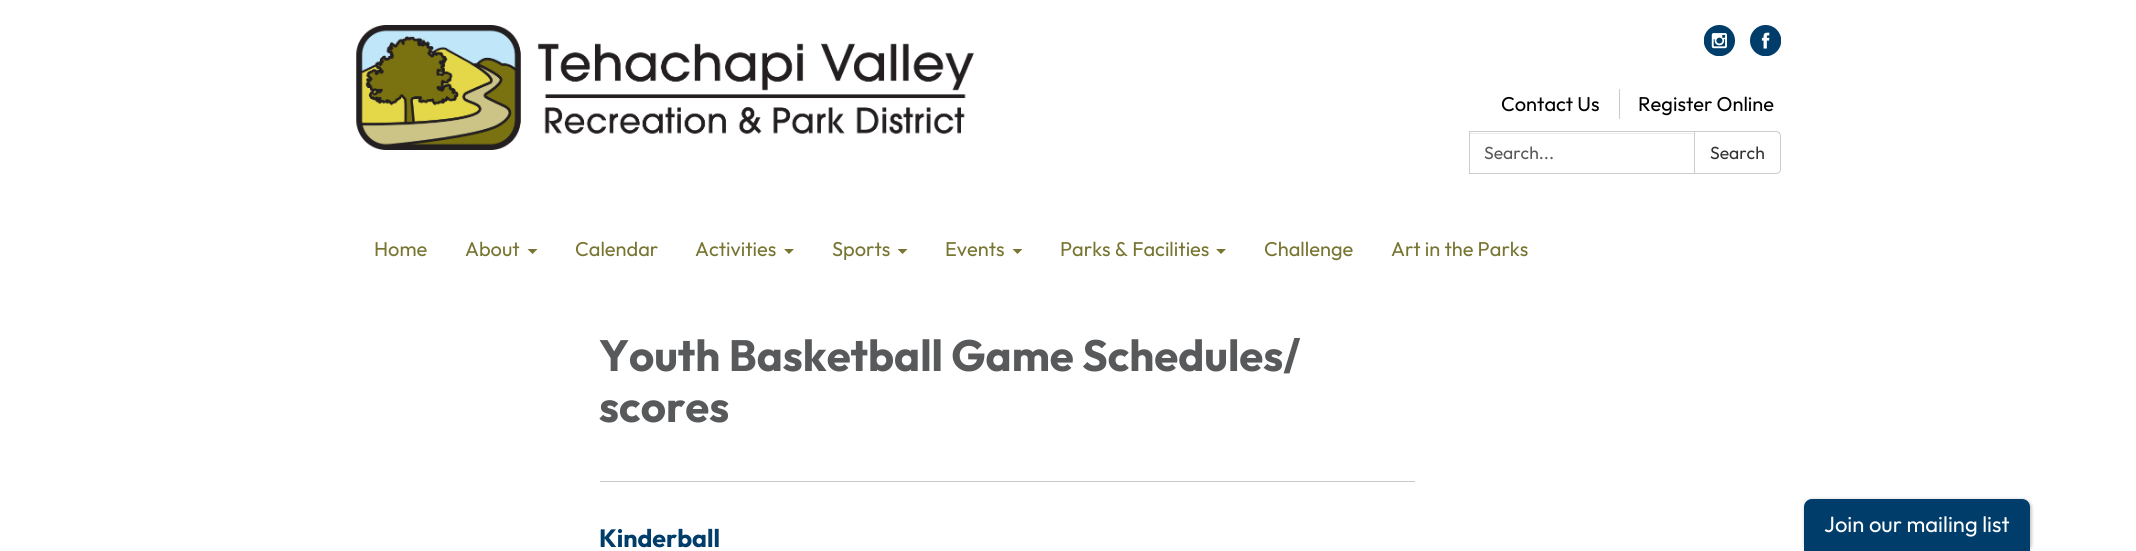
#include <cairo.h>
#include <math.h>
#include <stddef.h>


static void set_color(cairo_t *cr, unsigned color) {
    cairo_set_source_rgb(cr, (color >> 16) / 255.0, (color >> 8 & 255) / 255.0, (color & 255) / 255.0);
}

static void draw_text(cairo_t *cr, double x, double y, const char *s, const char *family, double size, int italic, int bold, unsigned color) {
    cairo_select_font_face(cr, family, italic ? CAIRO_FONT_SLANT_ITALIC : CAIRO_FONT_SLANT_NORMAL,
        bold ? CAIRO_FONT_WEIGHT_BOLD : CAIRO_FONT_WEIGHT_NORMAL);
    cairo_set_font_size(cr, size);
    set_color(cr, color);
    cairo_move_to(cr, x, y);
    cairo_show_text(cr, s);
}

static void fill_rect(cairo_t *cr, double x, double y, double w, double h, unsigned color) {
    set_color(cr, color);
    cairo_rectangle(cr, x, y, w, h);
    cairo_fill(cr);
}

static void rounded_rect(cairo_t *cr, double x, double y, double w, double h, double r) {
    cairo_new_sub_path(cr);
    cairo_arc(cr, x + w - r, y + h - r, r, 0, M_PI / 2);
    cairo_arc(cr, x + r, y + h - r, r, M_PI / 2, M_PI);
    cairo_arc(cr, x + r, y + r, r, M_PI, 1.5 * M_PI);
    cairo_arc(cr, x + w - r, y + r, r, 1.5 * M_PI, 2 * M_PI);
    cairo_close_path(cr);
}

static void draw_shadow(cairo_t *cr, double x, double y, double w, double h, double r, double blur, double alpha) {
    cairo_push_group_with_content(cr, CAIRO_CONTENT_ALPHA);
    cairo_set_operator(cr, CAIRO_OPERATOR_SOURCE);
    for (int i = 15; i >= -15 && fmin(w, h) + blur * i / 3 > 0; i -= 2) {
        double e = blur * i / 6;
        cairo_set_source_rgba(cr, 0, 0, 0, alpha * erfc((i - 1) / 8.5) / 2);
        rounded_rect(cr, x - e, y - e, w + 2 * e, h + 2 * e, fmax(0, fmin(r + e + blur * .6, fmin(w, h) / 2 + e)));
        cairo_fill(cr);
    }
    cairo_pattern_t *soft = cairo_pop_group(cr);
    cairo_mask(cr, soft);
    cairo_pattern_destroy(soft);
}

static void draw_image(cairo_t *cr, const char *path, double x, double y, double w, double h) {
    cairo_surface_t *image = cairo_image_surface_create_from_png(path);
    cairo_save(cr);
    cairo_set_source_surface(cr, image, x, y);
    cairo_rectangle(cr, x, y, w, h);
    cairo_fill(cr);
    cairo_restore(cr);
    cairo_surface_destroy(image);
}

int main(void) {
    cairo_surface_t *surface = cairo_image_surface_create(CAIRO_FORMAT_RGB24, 2136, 551);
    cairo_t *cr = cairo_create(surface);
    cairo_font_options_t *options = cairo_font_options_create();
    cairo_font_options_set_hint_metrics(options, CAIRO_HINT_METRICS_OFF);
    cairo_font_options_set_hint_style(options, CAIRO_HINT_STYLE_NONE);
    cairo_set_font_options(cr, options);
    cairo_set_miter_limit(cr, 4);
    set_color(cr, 0xFFFFFF);
    cairo_paint(cr);
    draw_image(cr, "assets/img1.png", 356, 25, 618, 125);
    draw_image(cr, "assets/img2.png", 1704, 25, 31, 31);
    draw_image(cr, "assets/img3.png", 1750, 25, 31, 31);
    draw_text(cr, 1501, 111, "Contact Us", "Outfit", 20, 0, 0, 0x000000);
    fill_rect(cr, 1619, 89, 1, 30, 0xC8C9CB);
    draw_text(cr, 1638, 111, "Register Online", "Outfit", 20, 0, 0, 0x000000);
    fill_rect(cr, 1470, 133, 224, 1, 0xECECEC);
    cairo_rectangle(cr, 1469.5, 131.5, 225, 42);
    set_color(cr, 0xCCCCCC);
    cairo_set_line_width(cr, 1);
    cairo_stroke(cr);
    draw_text(cr, 1484, 159, "Search...", "Outfit", 17.5, 0, 0, 0x58595B);
    set_color(cr, 0xFFFFFF);
    cairo_new_path(cr);
    cairo_move_to(cr, 1694.5, 131.5);
    cairo_line_to(cr, 1776, 131.5);
    cairo_curve_to(cr, 1778.5, 131.5, 1780.5, 133.5, 1780.5, 136);
    cairo_line_to(cr, 1780.5, 169);
    cairo_curve_to(cr, 1780.5, 171.5, 1778.5, 173.5, 1776, 173.5);
    cairo_line_to(cr, 1694.5, 173.5);
    cairo_close_path(cr);
    cairo_fill_preserve(cr);
    set_color(cr, 0xCCCCCC);
    cairo_stroke(cr);
    draw_text(cr, 1710, 159, "Search", "Outfit", 17.5, 0, 0, 0x333333);
    draw_text(cr, 374, 256, "Home", "Outfit", 20, 0, 0, 0x777531);
    draw_text(cr, 465, 256, "About", "Outfit", 20, 0, 0, 0x777531);
    cairo_new_path(cr);
    cairo_move_to(cr, 527.5, 249);
    cairo_line_to(cr, 537.5, 249);
    cairo_line_to(cr, 532.5, 254);
    cairo_close_path(cr);
    cairo_fill(cr);
    draw_text(cr, 575, 256, "Calendar", "Outfit", 20, 0, 0, 0x777531);
    draw_text(cr, 695, 256, "Activities", "Outfit", 20, 0, 0, 0x777531);
    cairo_new_path(cr);
    cairo_move_to(cr, 784, 249);
    cairo_line_to(cr, 794, 249);
    cairo_line_to(cr, 789, 254);
    cairo_close_path(cr);
    cairo_fill(cr);
    draw_text(cr, 832, 256, "Sports", "Outfit", 20, 0, 0, 0x777531);
    cairo_new_path(cr);
    cairo_move_to(cr, 897.5, 249);
    cairo_line_to(cr, 907.5, 249);
    cairo_line_to(cr, 902.5, 254);
    cairo_close_path(cr);
    cairo_fill(cr);
    draw_text(cr, 945, 256, "Events", "Outfit", 20, 0, 0, 0x777531);
    cairo_new_path(cr);
    cairo_move_to(cr, 1012.5, 249);
    cairo_line_to(cr, 1022.5, 249);
    cairo_line_to(cr, 1017.5, 254);
    cairo_close_path(cr);
    cairo_fill(cr);
    draw_text(cr, 1060, 256, "Parks & Facilities", "Outfit", 20, 0, 0, 0x777531);
    cairo_new_path(cr);
    cairo_move_to(cr, 1216, 249);
    cairo_line_to(cr, 1226, 249);
    cairo_line_to(cr, 1221, 254);
    cairo_close_path(cr);
    cairo_fill(cr);
    draw_text(cr, 1264, 256, "Challenge", "Outfit", 20, 0, 0, 0x777531);
    draw_text(cr, 1391, 256, "Art in the Parks", "Outfit", 20, 0, 0, 0x777531);
    draw_text(cr, 599, 371, "Youth Basketball Game Schedules/", "Outfit", 43.75, 0, 1, 0x58595B);
    draw_text(cr, 599, 422, "scores", "Outfit", 43.75, 0, 1, 0x58595B);
    fill_rect(cr, 600, 481, 815, 1, 0xC8C9CB);
    draw_text(cr, 599, 547, "Kinderball", "Outfit", 25, 0, 1, 0x003D6A);
    set_color(cr, 0x000000);
    draw_shadow(cr, 1805, 500, 226, 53, 8, 2, 0.3);
    set_color(cr, 0x003D6A);
    cairo_new_path(cr);
    cairo_move_to(cr, 1812, 499);
    cairo_line_to(cr, 2022, 499);
    cairo_curve_to(cr, 2026.5, 499, 2030, 502.5, 2030, 507);
    cairo_line_to(cr, 2030, 551);
    cairo_line_to(cr, 1804, 551);
    cairo_line_to(cr, 1804, 507);
    cairo_curve_to(cr, 1804, 502.5, 1807.5, 499, 1812, 499);
    cairo_close_path(cr);
    cairo_fill(cr);
    draw_text(cr, 1824, 532, "Join our mailing list", "Outfit", 22, 0, 0, 0xFFFFFF);
    cairo_surface_write_to_png(surface, "output.png");
    cairo_font_options_destroy(options);
    cairo_destroy(cr);
    cairo_surface_destroy(surface);
    return 0;
}
